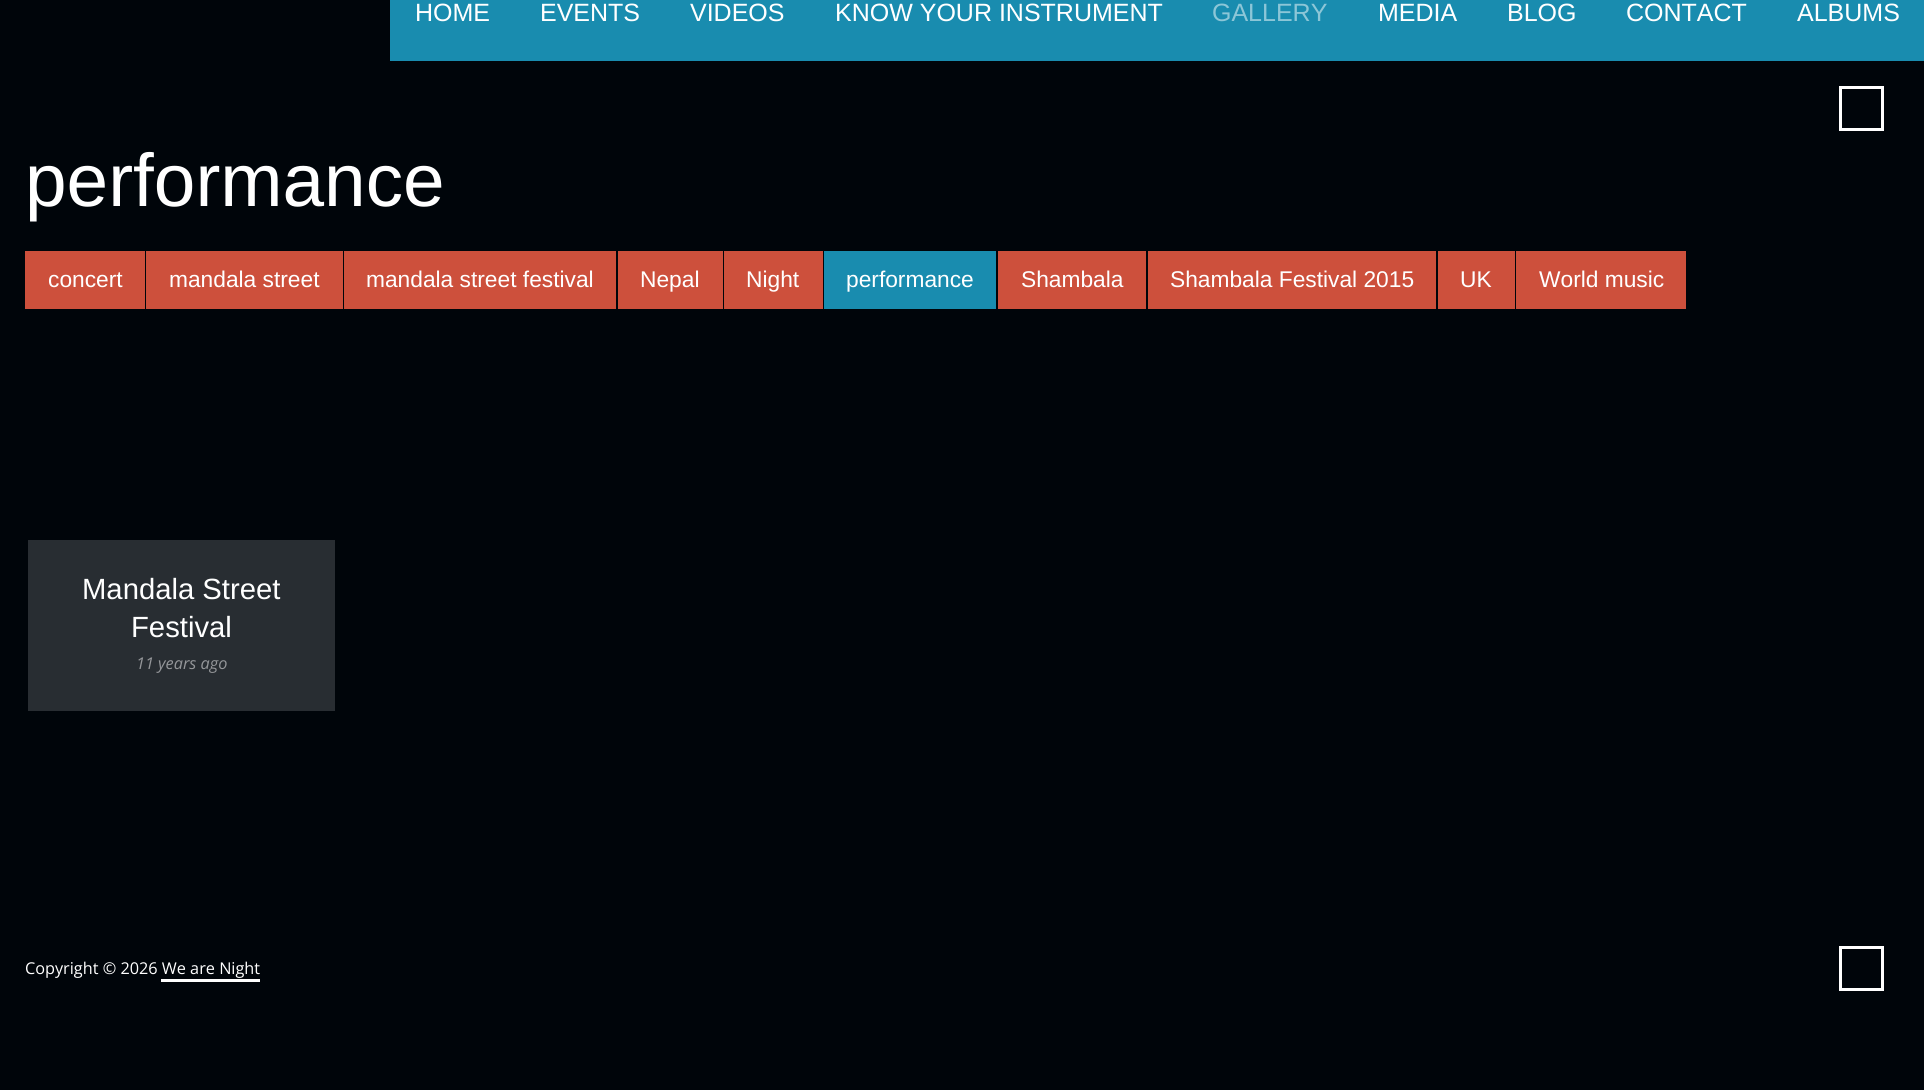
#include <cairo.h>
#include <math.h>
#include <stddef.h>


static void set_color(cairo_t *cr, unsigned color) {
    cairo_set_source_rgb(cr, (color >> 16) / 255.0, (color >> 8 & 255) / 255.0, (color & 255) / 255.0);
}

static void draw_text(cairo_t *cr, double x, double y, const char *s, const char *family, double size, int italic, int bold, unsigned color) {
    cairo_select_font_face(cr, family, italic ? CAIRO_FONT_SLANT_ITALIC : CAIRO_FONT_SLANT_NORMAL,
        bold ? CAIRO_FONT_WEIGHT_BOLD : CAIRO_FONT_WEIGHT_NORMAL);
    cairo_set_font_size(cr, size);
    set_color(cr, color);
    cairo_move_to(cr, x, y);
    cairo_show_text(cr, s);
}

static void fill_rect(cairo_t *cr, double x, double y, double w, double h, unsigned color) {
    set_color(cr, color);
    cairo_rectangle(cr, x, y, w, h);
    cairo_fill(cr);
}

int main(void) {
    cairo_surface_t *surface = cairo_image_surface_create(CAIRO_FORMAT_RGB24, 1924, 1090);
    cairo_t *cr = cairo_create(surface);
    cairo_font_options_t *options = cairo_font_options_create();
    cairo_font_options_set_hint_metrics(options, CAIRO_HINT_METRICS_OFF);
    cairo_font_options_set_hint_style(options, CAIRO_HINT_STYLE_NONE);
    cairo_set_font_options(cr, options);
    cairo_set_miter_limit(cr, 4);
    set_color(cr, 0x00050A);
    cairo_paint(cr);
    fill_rect(cr, 390, 0, 1534, 61, 0x198CAF);
    draw_text(cr, 415, 21, "HOME", "Liberation Sans", 25, 0, 0, 0xFFFFFF);
    draw_text(cr, 540, 21, "EVENTS", "Liberation Sans", 25, 0, 0, 0xFFFFFF);
    draw_text(cr, 690, 21, "VIDEOS", "Liberation Sans", 25, 0, 0, 0xFFFFFF);
    draw_text(cr, 835, 21, "KNOW YOUR INSTRUMENT", "Liberation Sans", 25, 0, 0, 0xFFFFFF);
    draw_text(cr, 1212, 21, "GALLERY", "Liberation Sans", 25, 0, 0, 0x8CC6D7);
    draw_text(cr, 1378, 21, "MEDIA", "Liberation Sans", 25, 0, 0, 0xFFFFFF);
    draw_text(cr, 1507, 21, "BLOG", "Liberation Sans", 25, 0, 0, 0xFFFFFF);
    draw_text(cr, 1626, 21, "CONTACT", "Liberation Sans", 25, 0, 0, 0xFFFFFF);
    draw_text(cr, 1797, 21, "ALBUMS", "Liberation Sans", 25, 0, 0, 0xFFFFFF);
    cairo_rectangle(cr, 1840.5, 87.5, 42, 42);
    cairo_set_line_width(cr, 3);
    cairo_stroke(cr);
    draw_text(cr, 25, 206, "performance", "Liberation Sans", 74.75, 0, 0, 0xFFFFFF);
    fill_rect(cr, 25, 251, 120, 58, 0xCD503C);
    draw_text(cr, 48, 287, "concert", "Liberation Sans", 22.75, 0, 0, 0xFFFFFF);
    fill_rect(cr, 146, 251, 197, 58, 0xCD503C);
    draw_text(cr, 169, 287, "mandala street", "Liberation Sans", 22.75, 0, 0, 0xFFFFFF);
    fill_rect(cr, 344, 251, 272, 58, 0xCD503C);
    draw_text(cr, 366, 287, "mandala street festival", "Liberation Sans", 22.75, 0, 0, 0xFFFFFF);
    fill_rect(cr, 618, 251, 105, 58, 0xCD503C);
    draw_text(cr, 640, 287, "Nepal", "Liberation Sans", 22.75, 0, 0, 0xFFFFFF);
    fill_rect(cr, 724, 251, 99, 58, 0xCD503C);
    draw_text(cr, 746, 287, "Night", "Liberation Sans", 22.75, 0, 0, 0xFFFFFF);
    fill_rect(cr, 824, 251, 172, 58, 0x198CAF);
    draw_text(cr, 846, 287, "performance", "Liberation Sans", 22.75, 0, 0, 0xFFFFFF);
    fill_rect(cr, 998, 251, 148, 58, 0xCD503C);
    draw_text(cr, 1021, 287, "Shambala", "Liberation Sans", 22.75, 0, 0, 0xFFFFFF);
    fill_rect(cr, 1148, 251, 288, 58, 0xCD503C);
    draw_text(cr, 1170, 287, "Shambala Festival 2015", "Liberation Sans", 22.75, 0, 0, 0xFFFFFF);
    fill_rect(cr, 1438, 251, 77, 58, 0xCD503C);
    draw_text(cr, 1460, 287, "UK", "Liberation Sans", 22.75, 0, 0, 0xFFFFFF);
    fill_rect(cr, 1516, 251, 170, 58, 0xCD503C);
    draw_text(cr, 1539, 287, "World music", "Liberation Sans", 22.75, 0, 0, 0xFFFFFF);
    fill_rect(cr, 28, 540, 307, 171, 0x282D32);
    draw_text(cr, 82, 599, "Mandala Street", "Liberation Sans", 29.25, 0, 0, 0xFFFFFF);
    draw_text(cr, 131, 637, "Festival", "Liberation Sans", 29.25, 0, 0, 0xFFFFFF);
    draw_text(cr, 136, 669, "11 years ago", "Open Sans", 16.25, 1, 0, 0x949699);
    draw_text(cr, 25, 974, "Copyright © 2026 We are Night", "Open Sans", 16.25, 0, 0, 0xFFFFFF);
    fill_rect(cr, 161, 979, 99, 3, 0xFFFFFF);
    cairo_rectangle(cr, 1840.5, 947.5, 42, 42);
    cairo_stroke(cr);
    cairo_surface_write_to_png(surface, "output.png");
    cairo_font_options_destroy(options);
    cairo_destroy(cr);
    cairo_surface_destroy(surface);
    return 0;
}
